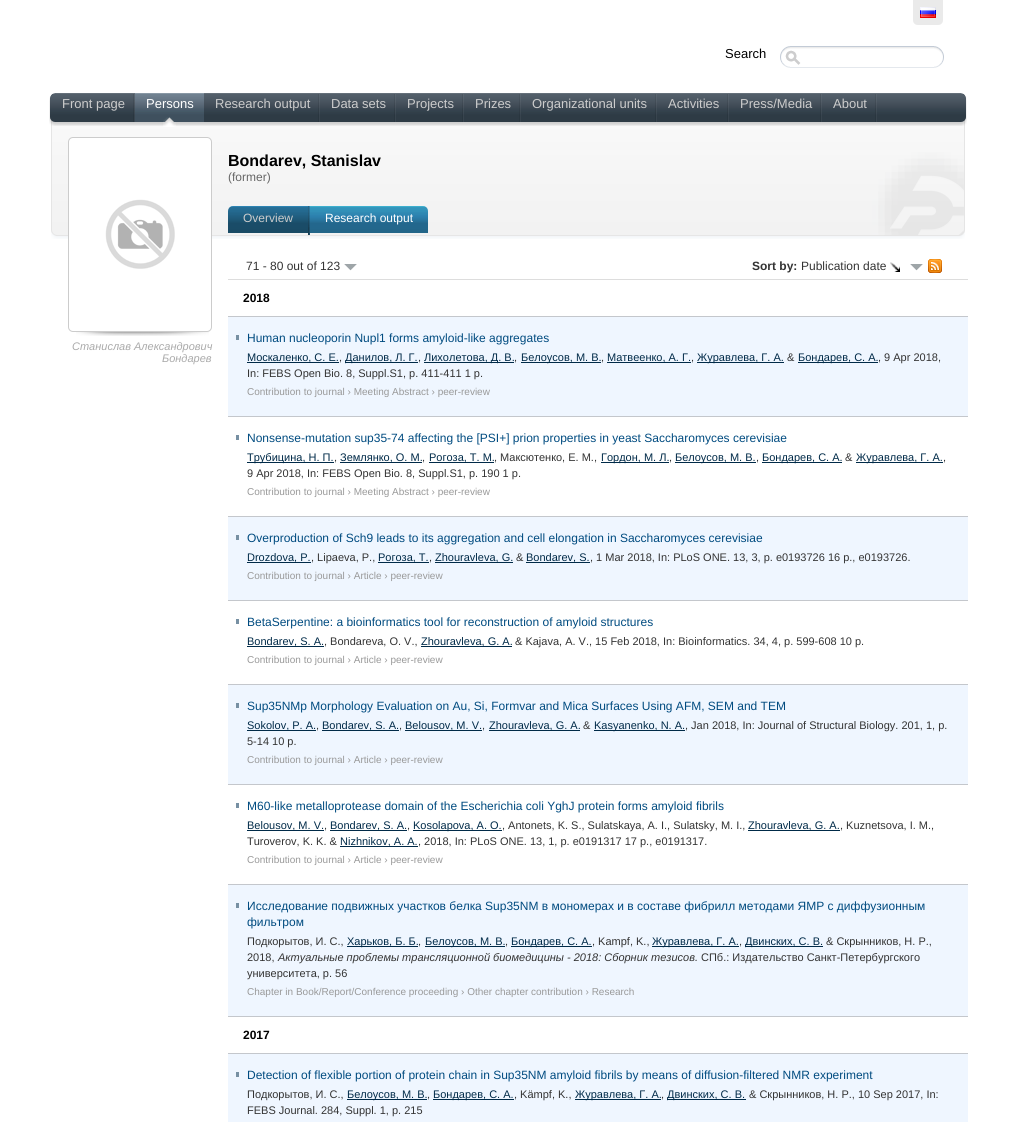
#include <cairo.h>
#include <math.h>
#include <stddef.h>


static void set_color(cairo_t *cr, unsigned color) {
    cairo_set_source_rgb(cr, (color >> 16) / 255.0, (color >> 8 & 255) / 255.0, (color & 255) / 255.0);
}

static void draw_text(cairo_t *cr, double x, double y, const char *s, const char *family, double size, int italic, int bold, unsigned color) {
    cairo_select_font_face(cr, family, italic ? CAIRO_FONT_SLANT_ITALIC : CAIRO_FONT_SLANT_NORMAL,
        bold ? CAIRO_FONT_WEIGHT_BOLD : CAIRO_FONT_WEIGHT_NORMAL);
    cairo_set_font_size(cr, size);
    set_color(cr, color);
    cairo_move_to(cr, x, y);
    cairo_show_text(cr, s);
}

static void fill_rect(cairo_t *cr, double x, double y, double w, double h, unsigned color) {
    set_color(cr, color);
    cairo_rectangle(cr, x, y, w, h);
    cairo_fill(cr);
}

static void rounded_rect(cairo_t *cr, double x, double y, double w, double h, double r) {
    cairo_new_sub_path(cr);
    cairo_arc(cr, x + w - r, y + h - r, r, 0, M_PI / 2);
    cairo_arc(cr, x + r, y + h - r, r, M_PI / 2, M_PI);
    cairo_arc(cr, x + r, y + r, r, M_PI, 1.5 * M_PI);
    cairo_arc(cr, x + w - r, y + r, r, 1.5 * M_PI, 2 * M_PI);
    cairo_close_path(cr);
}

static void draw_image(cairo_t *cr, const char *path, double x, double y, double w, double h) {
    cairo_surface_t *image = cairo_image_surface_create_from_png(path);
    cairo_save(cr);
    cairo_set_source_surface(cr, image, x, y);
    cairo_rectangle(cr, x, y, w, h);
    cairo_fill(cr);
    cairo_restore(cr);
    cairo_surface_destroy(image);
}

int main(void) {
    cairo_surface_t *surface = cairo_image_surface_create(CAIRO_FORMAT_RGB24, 1016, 1122);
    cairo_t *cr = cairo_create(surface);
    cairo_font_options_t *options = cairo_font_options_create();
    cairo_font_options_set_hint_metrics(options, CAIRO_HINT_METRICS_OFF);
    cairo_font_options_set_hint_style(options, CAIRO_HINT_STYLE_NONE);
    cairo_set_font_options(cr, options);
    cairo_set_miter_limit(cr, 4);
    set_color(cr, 0xFFFFFF);
    cairo_paint(cr);
    set_color(cr, 0xEAEAEA);
    cairo_new_path(cr);
    cairo_move_to(cr, 913, 0);
    cairo_line_to(cr, 943, 0);
    cairo_line_to(cr, 943, 20);
    cairo_curve_to(cr, 943, 23, 941, 25, 938, 25);
    cairo_line_to(cr, 918, 25);
    cairo_curve_to(cr, 915, 25, 913, 23, 913, 20);
    cairo_close_path(cr);
    cairo_fill(cr);
    draw_image(cr, "assets/img1.png", 920, 7, 16, 11);
    draw_text(cr, 725, 58, "Search", "Liberation Sans", 13, 0, 0, 0x000000);
    draw_image(cr, "assets/img2.png", 934, 46, 10, 22);
    draw_image(cr, "assets/img3.png", 780, 46, 154, 22);
    draw_image(cr, "assets/img8.png", 51, 119, 914, 120);
    draw_image(cr, "assets/img4.png", 49, 93, 918, 33);
    draw_image(cr, "assets/img5.png", 133, 94, 2, 28);
    draw_text(cr, 62, 108, "Front page", "Liberation Sans", 13, 0, 0, 0xCCCCCC);
    draw_image(cr, "assets/img6.png", 135, 93, 69, 29);
    draw_image(cr, "assets/img7.png", 163, 117, 13, 10);
    draw_text(cr, 146, 108, "Persons", "Liberation Sans", 13, 0, 0, 0xFFFFFF);
    draw_image(cr, "assets/img5.png", 318, 94, 2, 28);
    draw_text(cr, 215, 108, "Research output", "Liberation Sans", 13, 0, 0, 0xCCCCCC);
    draw_image(cr, "assets/img5.png", 394, 94, 2, 28);
    draw_text(cr, 331, 108, "Data sets", "Liberation Sans", 13, 0, 0, 0xCCCCCC);
    draw_image(cr, "assets/img5.png", 462, 94, 2, 28);
    draw_text(cr, 407, 108, "Projects", "Liberation Sans", 13, 0, 0, 0xCCCCCC);
    draw_image(cr, "assets/img5.png", 519, 94, 2, 28);
    draw_text(cr, 475, 108, "Prizes", "Liberation Sans", 13, 0, 0, 0xCCCCCC);
    draw_image(cr, "assets/img5.png", 655, 94, 2, 28);
    draw_text(cr, 532, 108, "Organizational units", "Liberation Sans", 13, 0, 0, 0xCCCCCC);
    draw_image(cr, "assets/img5.png", 727, 94, 2, 28);
    draw_text(cr, 668, 108, "Activities", "Liberation Sans", 13, 0, 0, 0xCCCCCC);
    draw_image(cr, "assets/img5.png", 820, 94, 2, 28);
    draw_text(cr, 740, 108, "Press/Media", "Liberation Sans", 13, 0, 0, 0xCCCCCC);
    draw_image(cr, "assets/img5.png", 875, 94, 2, 28);
    draw_text(cr, 833, 108, "About", "Liberation Sans", 13, 0, 0, 0xCCCCCC);
    draw_text(cr, 228, 166, "Bondarev, Stanislav", "Liberation Sans", 16, 0, 1, 0x000000);
    draw_text(cr, 228, 181, "(former)", "Liberation Sans", 12, 0, 0, 0x666666);
    draw_image(cr, "assets/img9.png", 228, 206, 80, 27);
    draw_text(cr, 243, 222, "Overview", "Liberation Sans", 12, 0, 0, 0xCCCCCC);
    draw_image(cr, "assets/img10.png", 308, 206, 2, 29);
    draw_image(cr, "assets/img11.png", 310, 206, 118, 27);
    draw_text(cr, 325, 222, "Research output", "Liberation Sans", 12, 0, 0, 0xFFFFFF);
    rounded_rect(cr, 68.5, 137.5, 143, 194, 4.5);
    cairo_fill_preserve(cr);
    set_color(cr, 0xCCCCCC);
    cairo_set_line_width(cr, 1);
    cairo_stroke(cr);
    draw_image(cr, "assets/img12.png", 105, 199, 70, 70);
    draw_image(cr, "assets/img13.png", 76, 332, 133, 4);
    draw_text(cr, 72, 350, "Станислав Александрович", "Liberation Sans", 11, 1, 0, 0xAAAAAA);
    draw_text(cr, 162, 362, "Бондарев", "Liberation Sans", 11, 1, 0, 0xAAAAAA);
    fill_rect(cr, 228, 279, 740, 1, 0xDDDDDD);
    draw_image(cr, "assets/img14.png", 344, 264, 13, 7);
    draw_text(cr, 246, 270, "71 - 80 out of 123", "Liberation Sans", 12, 0, 0, 0x333333);
    draw_image(cr, "assets/img14.png", 910, 264, 13, 7);
    draw_text(cr, 752, 270, "Sort by:", "Liberation Sans", 12, 0, 1, 0x333333);
    draw_text(cr, 801, 270, "Publication date", "Liberation Sans", 12, 0, 0, 0x333333);
    draw_image(cr, "assets/img15.png", 890, 262, 10, 10);
    draw_image(cr, "assets/img16.png", 928, 259, 14, 14);
    fill_rect(cr, 228, 316, 740, 1, 0xC4C7CC);
    draw_text(cr, 243, 302, "2018", "Liberation Sans", 12, 0, 1, 0x000000);
    fill_rect(cr, 228, 317, 740, 99, 0xEFF6FF);
    fill_rect(cr, 236, 335, 3, 5, 0x7790A3);
    fill_rect(cr, 228, 416, 740, 1, 0xC4C7CC);
    draw_text(cr, 247, 342, "Human nucleoporin Nupl1 forms amyloid-like aggregates", "Liberation Sans", 12, 0, 0, 0x004B80);
    fill_rect(cr, 247, 362, 92, 1, 0x002A48);
    draw_text(cr, 247, 361, "Москаленко, С. Е.", "Liberation Sans", 11, 0, 0, 0x002A48);
    draw_text(cr, 339, 361, ",", "Liberation Sans", 11, 0, 0, 0x333333);
    fill_rect(cr, 345, 362, 73, 1, 0x002A48);
    draw_text(cr, 345, 361, "Данилов, Л. Г.", "Liberation Sans", 11, 0, 0, 0x002A48);
    draw_text(cr, 418, 361, ",", "Liberation Sans", 11, 0, 0, 0x333333);
    fill_rect(cr, 424, 362, 90, 1, 0x002A48);
    draw_text(cr, 424, 361, "Лихолетова, Д. В.", "Liberation Sans", 11, 0, 0, 0x002A48);
    draw_text(cr, 514, 361, ",", "Liberation Sans", 11, 0, 0, 0x333333);
    fill_rect(cr, 521, 362, 80, 1, 0x002A48);
    draw_text(cr, 521, 361, "Белоусов, М. В.", "Liberation Sans", 11, 0, 0, 0x002A48);
    draw_text(cr, 601, 361, ",", "Liberation Sans", 11, 0, 0, 0x333333);
    fill_rect(cr, 607, 362, 84, 1, 0x002A48);
    draw_text(cr, 607, 361, "Матвеенко, А. Г.", "Liberation Sans", 11, 0, 0, 0x002A48);
    draw_text(cr, 691, 361, ",", "Liberation Sans", 11, 0, 0, 0x333333);
    fill_rect(cr, 697, 362, 87, 1, 0x002A48);
    draw_text(cr, 697, 361, "Журавлева, Г. А.", "Liberation Sans", 11, 0, 0, 0x002A48);
    draw_text(cr, 787, 361, "&", "Liberation Sans", 11, 0, 0, 0x333333);
    fill_rect(cr, 798, 362, 80, 1, 0x002A48);
    draw_text(cr, 798, 361, "Бондарев, С. А.", "Liberation Sans", 11, 0, 0, 0x002A48);
    draw_text(cr, 878, 361, ", 9 Apr 2018,", "Liberation Sans", 11, 0, 0, 0x333333);
    draw_text(cr, 247, 377, "In: FEBS Open Bio. 8, Suppl.S1, p. 411-411 1 p.", "Liberation Sans", 11, 0, 0, 0x333333);
    draw_text(cr, 247, 395, "Contribution to journal › Meeting Abstract › peer-review", "Liberation Sans", 10, 0, 0, 0x999999);
    fill_rect(cr, 236, 435, 3, 5, 0x7790A3);
    fill_rect(cr, 228, 516, 740, 1, 0xC4C7CC);
    draw_text(cr, 247, 442, "Nonsense-mutation sup35-74 affecting the [PSI+] prion properties in yeast Saccharomyces cerevisiae", "Liberation Sans", 12, 0, 0, 0x004B80);
    fill_rect(cr, 247, 462, 87, 1, 0x002A48);
    draw_text(cr, 247, 461, "Трубицина, Н. П.", "Liberation Sans", 11, 0, 0, 0x002A48);
    draw_text(cr, 334, 461, ",", "Liberation Sans", 11, 0, 0, 0x333333);
    fill_rect(cr, 340, 462, 82, 1, 0x002A48);
    draw_text(cr, 340, 461, "Землянко, О. М.", "Liberation Sans", 11, 0, 0, 0x002A48);
    draw_text(cr, 422, 461, ",", "Liberation Sans", 11, 0, 0, 0x333333);
    fill_rect(cr, 429, 462, 65, 1, 0x002A48);
    draw_text(cr, 429, 461, "Рогоза, Т. М.", "Liberation Sans", 11, 0, 0, 0x002A48);
    draw_text(cr, 494, 461, ", Максютенко, Е. М.,", "Liberation Sans", 11, 0, 0, 0x333333);
    fill_rect(cr, 601, 462, 68, 1, 0x002A48);
    draw_text(cr, 601, 461, "Гордон, М. Л.", "Liberation Sans", 11, 0, 0, 0x002A48);
    draw_text(cr, 669, 461, ",", "Liberation Sans", 11, 0, 0, 0x333333);
    fill_rect(cr, 675, 462, 81, 1, 0x002A48);
    draw_text(cr, 675, 461, "Белоусов, М. В.", "Liberation Sans", 11, 0, 0, 0x002A48);
    draw_text(cr, 756, 461, ",", "Liberation Sans", 11, 0, 0, 0x333333);
    fill_rect(cr, 762, 462, 80, 1, 0x002A48);
    draw_text(cr, 762, 461, "Бондарев, С. А.", "Liberation Sans", 11, 0, 0, 0x002A48);
    draw_text(cr, 845, 461, "&", "Liberation Sans", 11, 0, 0, 0x333333);
    fill_rect(cr, 856, 462, 87, 1, 0x002A48);
    draw_text(cr, 856, 461, "Журавлева, Г. А.", "Liberation Sans", 11, 0, 0, 0x002A48);
    draw_text(cr, 943, 461, ",", "Liberation Sans", 11, 0, 0, 0x333333);
    draw_text(cr, 247, 477, "9 Apr 2018, In: FEBS Open Bio. 8, Suppl.S1, p. 190 1 p.", "Liberation Sans", 11, 0, 0, 0x333333);
    draw_text(cr, 247, 495, "Contribution to journal › Meeting Abstract › peer-review", "Liberation Sans", 10, 0, 0, 0x999999);
    fill_rect(cr, 228, 517, 740, 83, 0xEFF6FF);
    fill_rect(cr, 236, 535, 3, 5, 0x7790A3);
    fill_rect(cr, 228, 600, 740, 1, 0xC4C7CC);
    draw_text(cr, 247, 542, "Overproduction of Sch9 leads to its aggregation and cell elongation in Saccharomyces cerevisiae", "Liberation Sans", 12, 0, 0, 0x004B80);
    fill_rect(cr, 247, 562, 64, 1, 0x002A48);
    draw_text(cr, 247, 561, "Drozdova, P.", "Liberation Sans", 11, 0, 0, 0x002A48);
    draw_text(cr, 311, 561, ", Lipaeva, P.,", "Liberation Sans", 11, 0, 0, 0x333333);
    fill_rect(cr, 378, 562, 51, 1, 0x002A48);
    draw_text(cr, 378, 561, "Рогоза, Т.", "Liberation Sans", 11, 0, 0, 0x002A48);
    draw_text(cr, 429, 561, ",", "Liberation Sans", 11, 0, 0, 0x333333);
    fill_rect(cr, 435, 562, 78, 1, 0x002A48);
    draw_text(cr, 435, 561, "Zhouravleva, G.", "Liberation Sans", 11, 0, 0, 0x002A48);
    draw_text(cr, 516, 561, "&", "Liberation Sans", 11, 0, 0, 0x333333);
    fill_rect(cr, 526, 562, 64, 1, 0x002A48);
    draw_text(cr, 526, 561, "Bondarev, S.", "Liberation Sans", 11, 0, 0, 0x002A48);
    draw_text(cr, 590, 561, ", 1 Mar 2018, In: PLoS ONE. 13, 3, p. e0193726 16 p., e0193726.", "Liberation Sans", 11, 0, 0, 0x333333);
    draw_text(cr, 247, 579, "Contribution to journal › Article › peer-review", "Liberation Sans", 10, 0, 0, 0x999999);
    fill_rect(cr, 236, 619, 3, 5, 0x7790A3);
    fill_rect(cr, 228, 684, 740, 1, 0xC4C7CC);
    draw_text(cr, 247, 626, "BetaSerpentine: a bioinformatics tool for reconstruction of amyloid structures", "Liberation Sans", 12, 0, 0, 0x004B80);
    fill_rect(cr, 247, 646, 77, 1, 0x002A48);
    draw_text(cr, 247, 645, "Bondarev, S. A.", "Liberation Sans", 11, 0, 0, 0x002A48);
    draw_text(cr, 324, 645, ", Bondareva, O. V.,", "Liberation Sans", 11, 0, 0, 0x333333);
    fill_rect(cr, 421, 646, 91, 1, 0x002A48);
    draw_text(cr, 421, 645, "Zhouravleva, G. A.", "Liberation Sans", 11, 0, 0, 0x002A48);
    draw_text(cr, 515, 645, "& Kajava, A. V., 15 Feb 2018, In: Bioinformatics. 34, 4, p. 599-608 10 p.", "Liberation Sans", 11, 0, 0, 0x333333);
    draw_text(cr, 247, 663, "Contribution to journal › Article › peer-review", "Liberation Sans", 10, 0, 0, 0x999999);
    fill_rect(cr, 228, 685, 740, 99, 0xEFF6FF);
    fill_rect(cr, 236, 703, 3, 5, 0x7790A3);
    fill_rect(cr, 228, 784, 740, 1, 0xC4C7CC);
    draw_text(cr, 247, 710, "Sup35NMp Morphology Evaluation on Au, Si, Formvar and Mica Surfaces Using AFM, SEM and TEM", "Liberation Sans", 12, 0, 0, 0x004B80);
    fill_rect(cr, 247, 730, 69, 1, 0x002A48);
    draw_text(cr, 247, 729, "Sokolov, P. A.", "Liberation Sans", 11, 0, 0, 0x002A48);
    draw_text(cr, 316, 729, ",", "Liberation Sans", 11, 0, 0, 0x333333);
    fill_rect(cr, 322, 730, 77, 1, 0x002A48);
    draw_text(cr, 322, 729, "Bondarev, S. A.", "Liberation Sans", 11, 0, 0, 0x002A48);
    draw_text(cr, 399, 729, ",", "Liberation Sans", 11, 0, 0, 0x333333);
    fill_rect(cr, 405, 730, 77, 1, 0x002A48);
    draw_text(cr, 405, 729, "Belousov, M. V.", "Liberation Sans", 11, 0, 0, 0x002A48);
    draw_text(cr, 482, 729, ",", "Liberation Sans", 11, 0, 0, 0x333333);
    fill_rect(cr, 489, 730, 91, 1, 0x002A48);
    draw_text(cr, 489, 729, "Zhouravleva, G. A.", "Liberation Sans", 11, 0, 0, 0x002A48);
    draw_text(cr, 583, 729, "&", "Liberation Sans", 11, 0, 0, 0x333333);
    fill_rect(cr, 594, 730, 91, 1, 0x002A48);
    draw_text(cr, 594, 729, "Kasyanenko, N. A.", "Liberation Sans", 11, 0, 0, 0x002A48);
    draw_text(cr, 685, 729, ", Jan 2018, In: Journal of Structural Biology. 201, 1, p.", "Liberation Sans", 11, 0, 0, 0x333333);
    draw_text(cr, 247, 745, "5-14 10 p.", "Liberation Sans", 11, 0, 0, 0x333333);
    draw_text(cr, 247, 763, "Contribution to journal › Article › peer-review", "Liberation Sans", 10, 0, 0, 0x999999);
    fill_rect(cr, 236, 803, 3, 5, 0x7790A3);
    fill_rect(cr, 228, 884, 740, 1, 0xC4C7CC);
    draw_text(cr, 247, 810, "M60-like metalloprotease domain of the Escherichia coli YghJ protein forms amyloid fibrils", "Liberation Sans", 12, 0, 0, 0x004B80);
    fill_rect(cr, 247, 830, 77, 1, 0x002A48);
    draw_text(cr, 247, 829, "Belousov, M. V.", "Liberation Sans", 11, 0, 0, 0x002A48);
    draw_text(cr, 324, 829, ",", "Liberation Sans", 11, 0, 0, 0x333333);
    fill_rect(cr, 330, 830, 77, 1, 0x002A48);
    draw_text(cr, 330, 829, "Bondarev, S. A.", "Liberation Sans", 11, 0, 0, 0x002A48);
    draw_text(cr, 407, 829, ",", "Liberation Sans", 11, 0, 0, 0x333333);
    fill_rect(cr, 413, 830, 89, 1, 0x002A48);
    draw_text(cr, 413, 829, "Kosolapova, A. O.", "Liberation Sans", 11, 0, 0, 0x002A48);
    draw_text(cr, 502, 829, ", Antonets, K. S., Sulatskaya, A. I., Sulatsky, M. I.,", "Liberation Sans", 11, 0, 0, 0x333333);
    fill_rect(cr, 748, 830, 92, 1, 0x002A48);
    draw_text(cr, 748, 829, "Zhouravleva, G. A.", "Liberation Sans", 11, 0, 0, 0x002A48);
    draw_text(cr, 840, 829, ", Kuznetsova, I. M.,", "Liberation Sans", 11, 0, 0, 0x333333);
    draw_text(cr, 247, 845, "Turoverov, K. K. &", "Liberation Sans", 11, 0, 0, 0x333333);
    fill_rect(cr, 340, 846, 78, 1, 0x002A48);
    draw_text(cr, 340, 845, "Nizhnikov, A. A.", "Liberation Sans", 11, 0, 0, 0x002A48);
    draw_text(cr, 418, 845, ", 2018, In: PLoS ONE. 13, 1, p. e0191317 17 p., e0191317.", "Liberation Sans", 11, 0, 0, 0x333333);
    draw_text(cr, 247, 863, "Contribution to journal › Article › peer-review", "Liberation Sans", 10, 0, 0, 0x999999);
    fill_rect(cr, 228, 885, 740, 131, 0xEFF6FF);
    fill_rect(cr, 236, 903, 3, 5, 0x7790A3);
    fill_rect(cr, 228, 1016, 740, 1, 0xC4C7CC);
    draw_text(cr, 247, 910, "Исследование подвижных участков белка Sup35NM в мономерах и в составе фибрилл методами ЯМР с диффузионным", "Liberation Sans", 12, 0, 0, 0x004B80);
    draw_text(cr, 247, 926, "фильтром", "Liberation Sans", 12, 0, 0, 0x004B80);
    draw_text(cr, 247, 945, "Подкорытов, И. С.,", "Liberation Sans", 11, 0, 0, 0x333333);
    fill_rect(cr, 347, 946, 71, 1, 0x002A48);
    draw_text(cr, 347, 945, "Харьков, Б. Б.", "Liberation Sans", 11, 0, 0, 0x002A48);
    draw_text(cr, 418, 945, ",", "Liberation Sans", 11, 0, 0, 0x333333);
    fill_rect(cr, 425, 946, 80, 1, 0x002A48);
    draw_text(cr, 425, 945, "Белоусов, М. В.", "Liberation Sans", 11, 0, 0, 0x002A48);
    draw_text(cr, 505, 945, ",", "Liberation Sans", 11, 0, 0, 0x333333);
    fill_rect(cr, 511, 946, 81, 1, 0x002A48);
    draw_text(cr, 511, 945, "Бондарев, С. А.", "Liberation Sans", 11, 0, 0, 0x002A48);
    draw_text(cr, 592, 945, ", Kampf, K.,", "Liberation Sans", 11, 0, 0, 0x333333);
    fill_rect(cr, 652, 946, 87, 1, 0x002A48);
    draw_text(cr, 652, 945, "Журавлева, Г. А.", "Liberation Sans", 11, 0, 0, 0x002A48);
    draw_text(cr, 739, 945, ",", "Liberation Sans", 11, 0, 0, 0x333333);
    fill_rect(cr, 745, 946, 78, 1, 0x002A48);
    draw_text(cr, 745, 945, "Двинских, С. В.", "Liberation Sans", 11, 0, 0, 0x002A48);
    draw_text(cr, 826, 945, "& Скрынников, Н. Р.,", "Liberation Sans", 11, 0, 0, 0x333333);
    draw_text(cr, 247, 961, "2018,", "Liberation Sans", 11, 0, 0, 0x333333);
    draw_text(cr, 278, 961, "Актуальные проблемы трансляционной биомедицины - 2018: Сборник тезисов.", "Liberation Sans", 11, 1, 0, 0x333333);
    draw_text(cr, 701, 961, "СПб.: Издательство Санкт-Петербургского", "Liberation Sans", 11, 0, 0, 0x333333);
    draw_text(cr, 247, 977, "университета, p. 56", "Liberation Sans", 11, 0, 0, 0x333333);
    draw_text(cr, 247, 995, "Chapter in Book/Report/Conference proceeding › Other chapter contribution › Research", "Liberation Sans", 10, 0, 0, 0x999999);
    fill_rect(cr, 228, 1053, 740, 1, 0xC4C7CC);
    draw_text(cr, 243, 1039, "2017", "Liberation Sans", 12, 0, 1, 0x000000);
    fill_rect(cr, 228, 1054, 740, 68, 0xEFF6FF);
    fill_rect(cr, 236, 1072, 3, 5, 0x7790A3);
    draw_text(cr, 247, 1079, "Detection of flexible portion of protein chain in Sup35NM amyloid fibrils by means of diffusion-filtered NMR experiment", "Liberation Sans", 12, 0, 0, 0x004B80);
    draw_text(cr, 247, 1098, "Подкорытов, И. С.,", "Liberation Sans", 11, 0, 0, 0x333333);
    fill_rect(cr, 347, 1099, 80, 1, 0x002A48);
    draw_text(cr, 347, 1098, "Белоусов, М. В.", "Liberation Sans", 11, 0, 0, 0x002A48);
    draw_text(cr, 427, 1098, ",", "Liberation Sans", 11, 0, 0, 0x333333);
    fill_rect(cr, 433, 1099, 81, 1, 0x002A48);
    draw_text(cr, 433, 1098, "Бондарев, С. А.", "Liberation Sans", 11, 0, 0, 0x002A48);
    draw_text(cr, 514, 1098, ", Kämpf, K.,", "Liberation Sans", 11, 0, 0, 0x333333);
    fill_rect(cr, 575, 1099, 86, 1, 0x002A48);
    draw_text(cr, 575, 1098, "Журавлева, Г. А.", "Liberation Sans", 11, 0, 0, 0x002A48);
    draw_text(cr, 661, 1098, ",", "Liberation Sans", 11, 0, 0, 0x333333);
    fill_rect(cr, 667, 1099, 79, 1, 0x002A48);
    draw_text(cr, 667, 1098, "Двинских, С. В.", "Liberation Sans", 11, 0, 0, 0x002A48);
    draw_text(cr, 749, 1098, "& Скрынников, Н. Р., 10 Sep 2017, In:", "Liberation Sans", 11, 0, 0, 0x333333);
    draw_text(cr, 247, 1114, "FEBS Journal. 284, Suppl. 1, p. 215", "Liberation Sans", 11, 0, 0, 0x333333);
    cairo_surface_write_to_png(surface, "output.png");
    cairo_font_options_destroy(options);
    cairo_destroy(cr);
    cairo_surface_destroy(surface);
    return 0;
}
